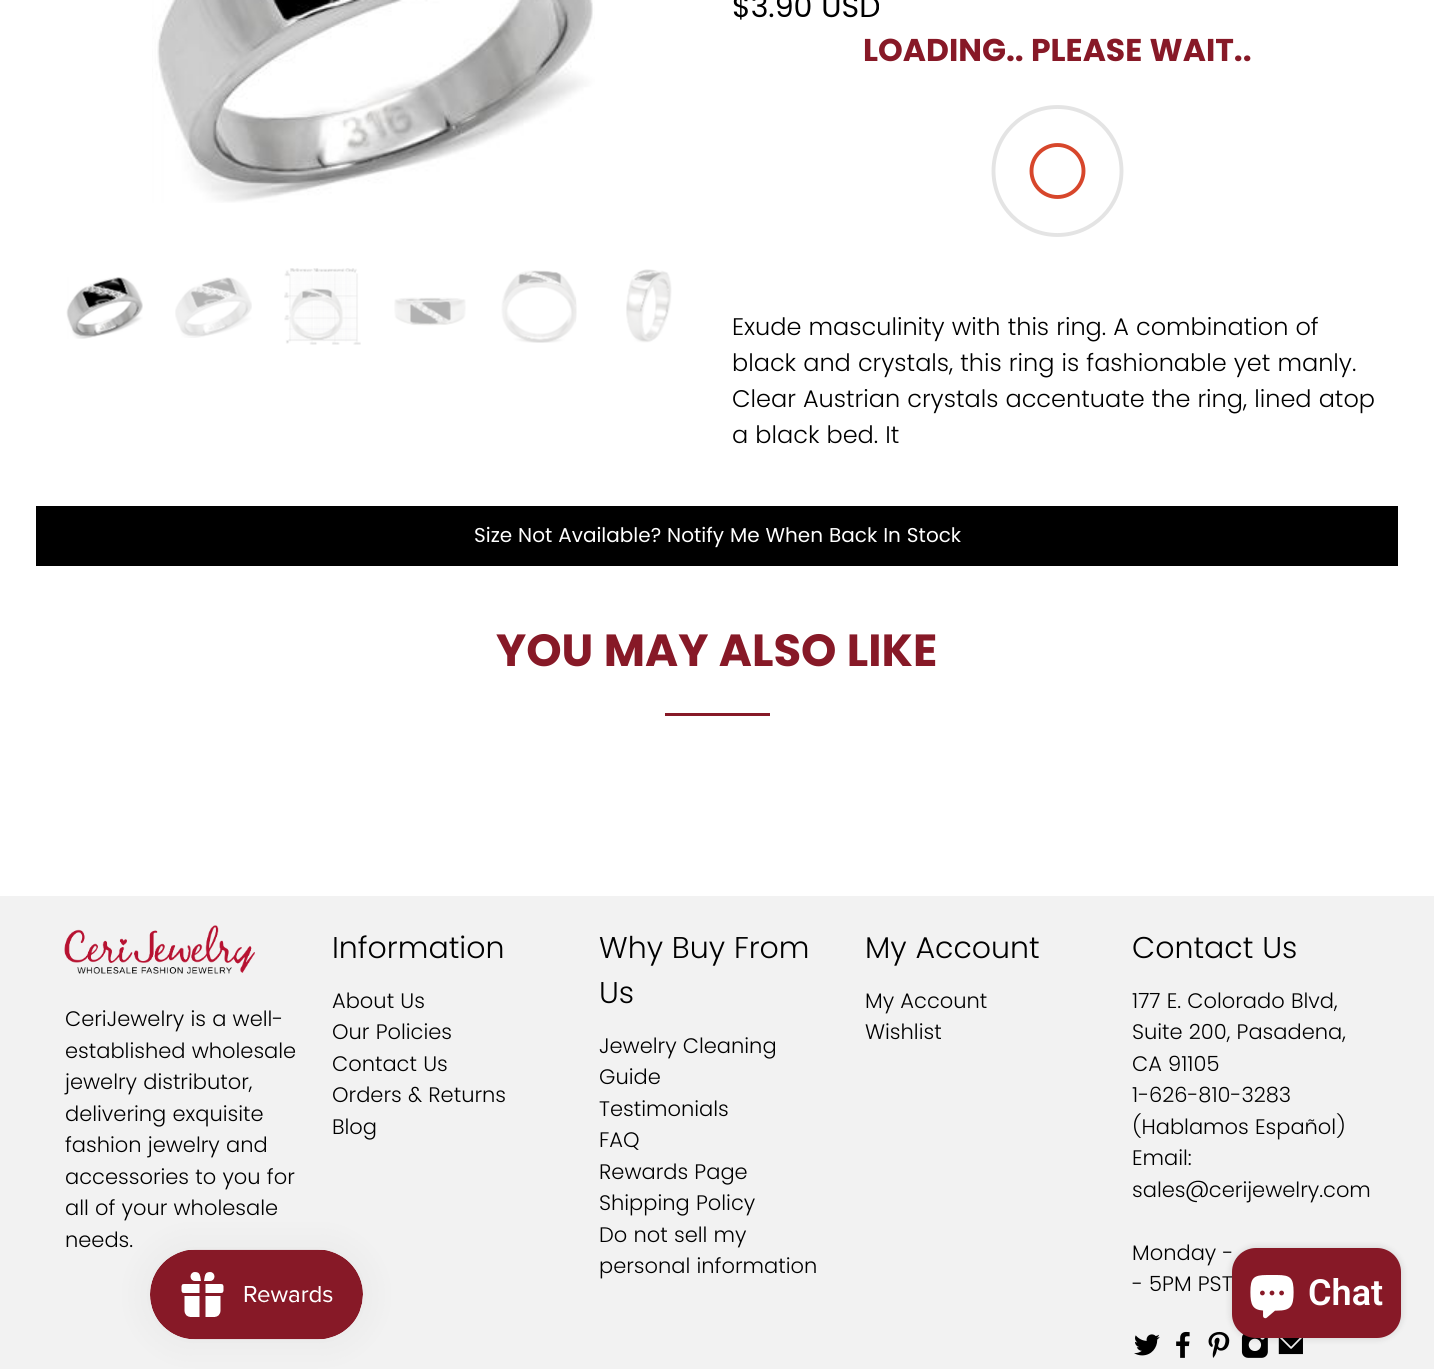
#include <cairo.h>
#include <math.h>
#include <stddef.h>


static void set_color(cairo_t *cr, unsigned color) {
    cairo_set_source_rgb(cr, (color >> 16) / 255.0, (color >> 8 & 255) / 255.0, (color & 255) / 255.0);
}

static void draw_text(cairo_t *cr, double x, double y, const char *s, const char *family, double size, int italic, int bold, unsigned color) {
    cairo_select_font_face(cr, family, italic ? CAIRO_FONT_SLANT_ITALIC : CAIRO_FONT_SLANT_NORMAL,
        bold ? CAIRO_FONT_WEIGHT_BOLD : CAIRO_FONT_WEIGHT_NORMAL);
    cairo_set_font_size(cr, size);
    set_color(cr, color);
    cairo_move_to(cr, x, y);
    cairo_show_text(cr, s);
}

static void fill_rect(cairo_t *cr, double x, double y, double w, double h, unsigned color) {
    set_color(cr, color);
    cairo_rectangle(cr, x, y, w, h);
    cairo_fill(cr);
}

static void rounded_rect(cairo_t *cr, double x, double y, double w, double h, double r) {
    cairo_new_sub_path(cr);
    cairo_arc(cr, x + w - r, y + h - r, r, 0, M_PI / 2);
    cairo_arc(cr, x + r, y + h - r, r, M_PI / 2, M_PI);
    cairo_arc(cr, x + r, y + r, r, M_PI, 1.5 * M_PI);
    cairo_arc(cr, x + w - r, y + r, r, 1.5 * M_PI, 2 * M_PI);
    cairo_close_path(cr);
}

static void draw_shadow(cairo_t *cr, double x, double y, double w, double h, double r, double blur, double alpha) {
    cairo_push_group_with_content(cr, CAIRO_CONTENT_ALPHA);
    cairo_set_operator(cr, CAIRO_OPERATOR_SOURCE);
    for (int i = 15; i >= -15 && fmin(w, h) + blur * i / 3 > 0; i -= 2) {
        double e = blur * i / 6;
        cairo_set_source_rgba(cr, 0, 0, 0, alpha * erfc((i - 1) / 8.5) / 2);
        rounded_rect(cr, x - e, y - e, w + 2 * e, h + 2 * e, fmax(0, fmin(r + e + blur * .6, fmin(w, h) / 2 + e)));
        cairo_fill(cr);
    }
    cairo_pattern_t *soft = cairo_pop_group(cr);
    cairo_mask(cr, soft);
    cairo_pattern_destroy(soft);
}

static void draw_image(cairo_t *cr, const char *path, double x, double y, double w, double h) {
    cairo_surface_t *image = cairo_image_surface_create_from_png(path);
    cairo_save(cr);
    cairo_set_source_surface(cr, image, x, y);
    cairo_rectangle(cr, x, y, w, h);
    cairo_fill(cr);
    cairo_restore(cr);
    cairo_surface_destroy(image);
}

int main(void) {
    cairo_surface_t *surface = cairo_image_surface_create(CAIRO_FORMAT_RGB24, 1434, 1369);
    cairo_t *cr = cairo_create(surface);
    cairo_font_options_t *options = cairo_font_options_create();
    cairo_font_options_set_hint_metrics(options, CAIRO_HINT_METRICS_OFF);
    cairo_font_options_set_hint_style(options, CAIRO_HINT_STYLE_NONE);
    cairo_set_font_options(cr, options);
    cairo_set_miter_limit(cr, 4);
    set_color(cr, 0xFFFFFF);
    cairo_paint(cr);
    draw_image(cr, "assets/img1.png", 152, 0, 443, 203);
    draw_image(cr, "assets/img2.png", 66, 277, 77, 62);
    draw_image(cr, "assets/img3.png", 175, 277, 77, 61);
    draw_image(cr, "assets/img4.png", 284, 268, 77, 77);
    draw_image(cr, "assets/img5.png", 394, 297, 72, 29);
    draw_image(cr, "assets/img6.png", 501, 270, 76, 73);
    draw_image(cr, "assets/img7.png", 626, 269, 46, 74);
    draw_text(cr, 732, 17, "$3.90 USD", "Poppins", 30, 0, 0, 0x000000);
    draw_text(cr, 863, 61, "LOADING.. PLEASE WAIT..", "Poppins", 31.5, 0, 1, 0x871927);
    cairo_new_path(cr);
    cairo_arc(cr, 1057.5, 171, 26, 0, 2 * M_PI);
    set_color(cr, 0xD7462B);
    cairo_set_line_width(cr, 3.9);
    cairo_stroke(cr);
    cairo_arc(cr, 1057.5, 171, 64, 0, 2 * M_PI);
    set_color(cr, 0xE4E4E4);
    cairo_stroke(cr);
    draw_text(cr, 732, 335, "Exude masculinity with this ring. A combination of", "Poppins Light", 24, 0, 0, 0x000000);
    draw_text(cr, 732, 371, "black and crystals, this ring is fashionable yet manly.", "Poppins Light", 24, 0, 0, 0x000000);
    draw_text(cr, 732, 407, "Clear Austrian crystals accentuate the ring, lined atop", "Poppins Light", 24, 0, 0, 0x000000);
    draw_text(cr, 732, 443, "a black bed. It", "Poppins Light", 24, 0, 0, 0x000000);
    fill_rect(cr, 36, 506, 1362, 60, 0x000000);
    draw_text(cr, 474, 542, "Size Not Available? Notify Me When Back In Stock", "Poppins", 20, 0, 0, 0xFFFFFF);
    draw_text(cr, 496, 666, "YOU MAY ALSO LIKE", "Poppins", 45, 0, 1, 0x871927);
    fill_rect(cr, 665, 713, 105, 3, 0x871927);
    fill_rect(cr, 0, 896, 1434, 473, 0xF2F2F2);
    draw_text(cr, 332, 958, "Information", "Poppins Light", 30, 0, 0, 0x000000);
    draw_text(cr, 332, 1008, "About Us", "Poppins Light", 21, 0, 0, 0x000000);
    draw_text(cr, 332, 1039, "Our Policies", "Poppins Light", 21, 0, 0, 0x000000);
    draw_text(cr, 332, 1071, "Contact Us", "Poppins Light", 21, 0, 0, 0x000000);
    draw_text(cr, 332, 1102, "Orders & Returns", "Poppins Light", 21, 0, 0, 0x000000);
    draw_text(cr, 332, 1134, "Blog", "Poppins Light", 21, 0, 0, 0x000000);
    draw_text(cr, 599, 958, "Why Buy From", "Poppins Light", 30, 0, 0, 0x000000);
    draw_text(cr, 599, 1003, "Us", "Poppins Light", 30, 0, 0, 0x000000);
    draw_text(cr, 599, 1053, "Jewelry Cleaning", "Poppins Light", 21, 0, 0, 0x000000);
    draw_text(cr, 599, 1084, "Guide", "Poppins Light", 21, 0, 0, 0x000000);
    draw_text(cr, 599, 1116, "Testimonials", "Poppins Light", 21, 0, 0, 0x000000);
    draw_text(cr, 599, 1147, "FAQ", "Poppins Light", 21, 0, 0, 0x000000);
    draw_text(cr, 599, 1179, "Rewards Page", "Poppins Light", 21, 0, 0, 0x000000);
    draw_text(cr, 599, 1210, "Shipping Policy", "Poppins Light", 21, 0, 0, 0x000000);
    draw_text(cr, 599, 1242, "Do not sell my", "Poppins Light", 21, 0, 0, 0x000000);
    draw_text(cr, 599, 1273, "personal information", "Poppins Light", 21, 0, 0, 0x000000);
    draw_text(cr, 865, 958, "My Account", "Poppins Light", 30, 0, 0, 0x000000);
    draw_text(cr, 865, 1008, "My Account", "Poppins Light", 21, 0, 0, 0x000000);
    draw_text(cr, 865, 1039, "Wishlist", "Poppins Light", 21, 0, 0, 0x000000);
    draw_text(cr, 1132, 958, "Contact Us", "Poppins Light", 30, 0, 0, 0x000000);
    draw_text(cr, 1132, 1008, "177 E. Colorado Blvd,", "Poppins Light", 21, 0, 0, 0x000000);
    draw_text(cr, 1132, 1039, "Suite 200, Pasadena,", "Poppins Light", 21, 0, 0, 0x000000);
    draw_text(cr, 1132, 1071, "CA 91105", "Poppins Light", 21, 0, 0, 0x000000);
    draw_text(cr, 1132, 1102, "1-626-810-3283", "Poppins Light", 21, 0, 0, 0x000000);
    draw_text(cr, 1132, 1134, "(Hablamos Español)", "Poppins Light", 21, 0, 0, 0x000000);
    draw_text(cr, 1132, 1165, "Email:", "Poppins Light", 21, 0, 0, 0x000000);
    draw_text(cr, 1132, 1197, "sales@cerijewelry.com", "Poppins Light", 21, 0, 0, 0x000000);
    draw_text(cr, 1132, 1260, "Monday -", "Poppins Light", 21, 0, 0, 0x000000);
    draw_text(cr, 1132, 1291, "- 5PM PST", "Poppins Light", 21, 0, 0, 0x000000);
    draw_image(cr, "assets/img8.png", 1134, 1334, 26, 22);
    draw_image(cr, "assets/img9.png", 1176, 1331, 14, 27);
    draw_image(cr, "assets/img10.png", 1208, 1331, 22, 27);
    draw_image(cr, "assets/img11.png", 1241, 1334, 27, 24);
    draw_image(cr, "assets/img12.png", 1278, 1338, 25, 17);
    draw_image(cr, "assets/img13.png", 64, 925, 191, 49);
    draw_text(cr, 65, 1026, "CeriJewelry is a well-", "Poppins Light", 21, 0, 0, 0x000000);
    draw_text(cr, 65, 1058, "established wholesale", "Poppins Light", 21, 0, 0, 0x000000);
    draw_text(cr, 65, 1089, "jewelry distributor,", "Poppins Light", 21, 0, 0, 0x000000);
    draw_text(cr, 65, 1121, "delivering exquisite", "Poppins Light", 21, 0, 0, 0x000000);
    draw_text(cr, 65, 1152, "fashion jewelry and", "Poppins Light", 21, 0, 0, 0x000000);
    draw_text(cr, 65, 1184, "accessories to you for", "Poppins Light", 21, 0, 0, 0x000000);
    draw_text(cr, 65, 1215, "all of your wholesale", "Poppins Light", 21, 0, 0, 0x000000);
    draw_text(cr, 65, 1247, "needs.", "Poppins Light", 21, 0, 0, 0x000000);
    set_color(cr, 0x000000);
    draw_shadow(cr, 150, 1250, 213, 90, 45, 19, 0.05);
    draw_image(cr, "assets/img14.png", 150, 1249, 213, 91);
    draw_shadow(cr, 1232, 1248, 169, 90, 24, 4, 0.15);
    set_color(cr, 0x871927);
    rounded_rect(cr, 1232, 1248, 169, 90, 24);
    cairo_fill(cr);
    draw_image(cr, "assets/img15.png", 1250, 1275, 44, 44);
    draw_text(cr, 1308, 1305, "Chat", "Roboto SemiBold", 36, 0, 0, 0xFFFFFF);
    cairo_surface_write_to_png(surface, "output.png");
    cairo_font_options_destroy(options);
    cairo_destroy(cr);
    cairo_surface_destroy(surface);
    return 0;
}
